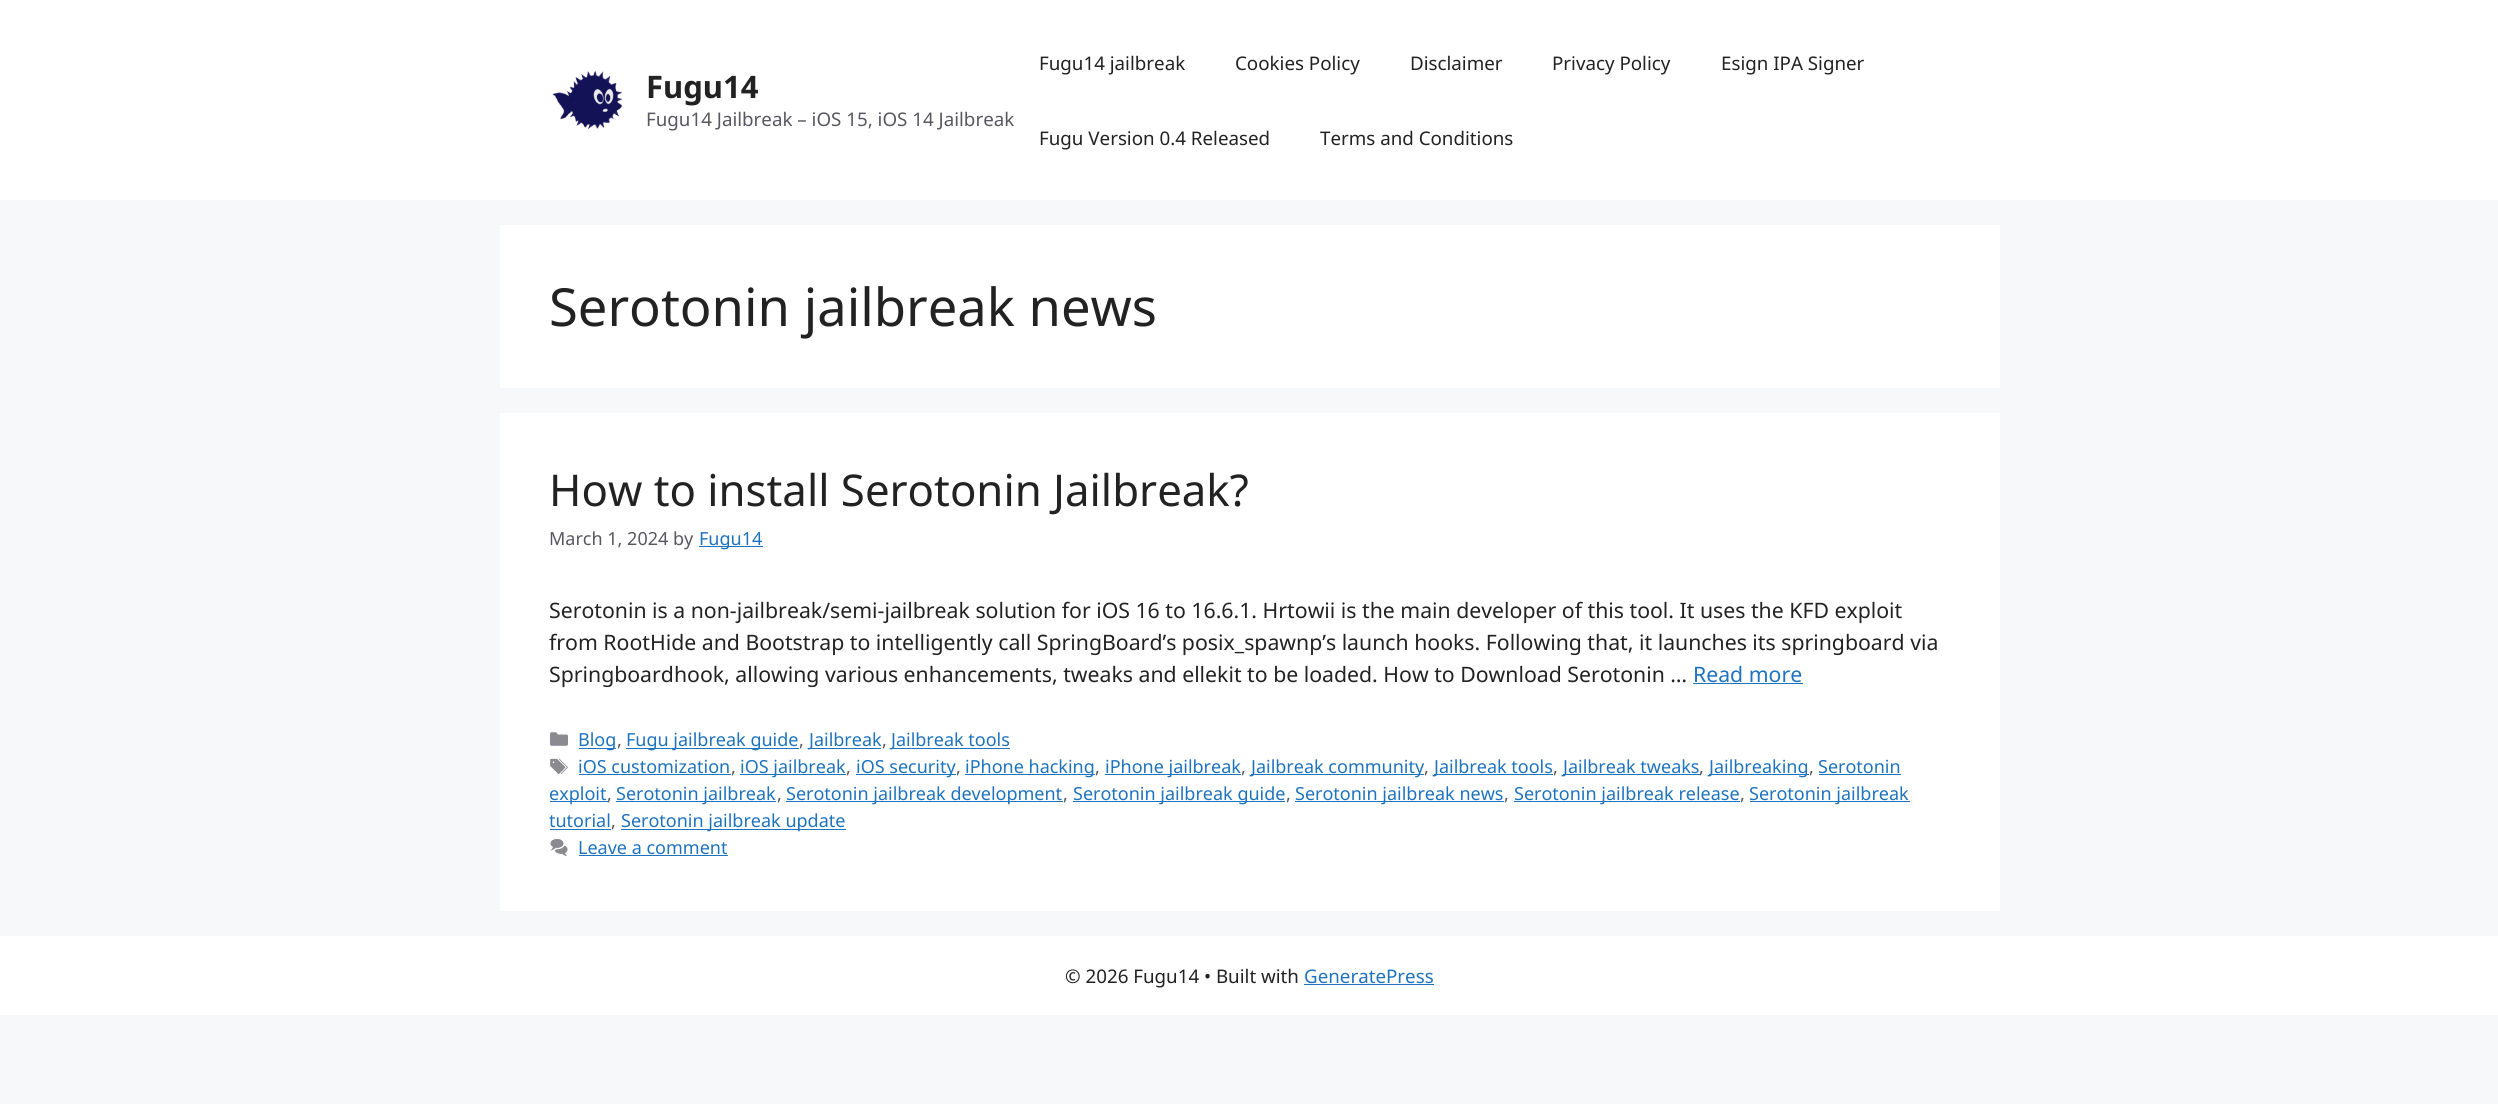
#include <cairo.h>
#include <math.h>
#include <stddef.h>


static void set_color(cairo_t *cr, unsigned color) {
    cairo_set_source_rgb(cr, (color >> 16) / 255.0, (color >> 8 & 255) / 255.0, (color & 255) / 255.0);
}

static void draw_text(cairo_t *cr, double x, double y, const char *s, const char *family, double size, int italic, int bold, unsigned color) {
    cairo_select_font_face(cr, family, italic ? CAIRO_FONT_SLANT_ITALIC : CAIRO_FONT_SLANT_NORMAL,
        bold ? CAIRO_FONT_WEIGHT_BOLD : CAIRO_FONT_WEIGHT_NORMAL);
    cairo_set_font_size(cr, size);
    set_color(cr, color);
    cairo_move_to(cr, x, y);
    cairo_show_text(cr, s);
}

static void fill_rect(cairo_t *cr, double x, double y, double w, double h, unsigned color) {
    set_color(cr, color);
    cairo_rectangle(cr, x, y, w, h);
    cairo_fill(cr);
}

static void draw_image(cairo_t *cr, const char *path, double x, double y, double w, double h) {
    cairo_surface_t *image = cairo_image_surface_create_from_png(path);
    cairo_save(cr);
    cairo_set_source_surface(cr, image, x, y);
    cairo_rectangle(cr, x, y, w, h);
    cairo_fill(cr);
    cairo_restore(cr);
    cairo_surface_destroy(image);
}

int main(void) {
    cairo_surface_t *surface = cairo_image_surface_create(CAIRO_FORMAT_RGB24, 2498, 1104);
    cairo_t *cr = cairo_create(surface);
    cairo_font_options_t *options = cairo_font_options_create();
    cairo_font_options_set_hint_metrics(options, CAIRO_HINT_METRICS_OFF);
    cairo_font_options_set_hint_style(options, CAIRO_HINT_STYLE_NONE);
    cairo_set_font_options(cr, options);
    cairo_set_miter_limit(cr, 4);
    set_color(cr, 0xF7F8F9);
    cairo_paint(cr);
    fill_rect(cr, 0, 0, 2498, 200, 0xFFFFFF);
    draw_image(cr, "assets/img1.png", 552, 70, 71, 59);
    draw_text(cr, 646, 98, "Fugu14", "Noto Sans", 31, 0, 1, 0x222222);
    draw_text(cr, 646, 126, "Fugu14 Jailbreak – iOS 15, iOS 14 Jailbreak", "Noto Sans", 18.75, 0, 0, 0x575760);
    draw_text(cr, 1039, 70, "Fugu14 jailbreak", "Noto Sans", 18.75, 0, 0, 0x222222);
    draw_text(cr, 1235, 70, "Cookies Policy", "Noto Sans", 18.75, 0, 0, 0x222222);
    draw_text(cr, 1410, 70, "Disclaimer", "Noto Sans", 18.75, 0, 0, 0x222222);
    draw_text(cr, 1552, 70, "Privacy Policy", "Noto Sans", 18.75, 0, 0, 0x222222);
    draw_text(cr, 1721, 70, "Esign IPA Signer", "Noto Sans", 18.75, 0, 0, 0x222222);
    draw_text(cr, 1039, 145, "Fugu Version 0.4 Released", "Noto Sans", 18.75, 0, 0, 0x222222);
    draw_text(cr, 1320, 145, "Terms and Conditions", "Noto Sans", 18.75, 0, 0, 0x222222);
    fill_rect(cr, 500, 225, 1500, 163, 0xFFFFFF);
    draw_text(cr, 549, 326, "Serotonin jailbreak news", "Noto Sans", 52.5, 0, 0, 0x222222);
    fill_rect(cr, 500, 413, 1500, 498, 0xFFFFFF);
    draw_text(cr, 549, 506, "How to install Serotonin Jailbreak?", "Noto Sans", 43.75, 0, 0, 0x222222);
    draw_text(cr, 549, 545, "March 1, 2024 by", "Noto Sans", 18, 0, 0, 0x575760);
    fill_rect(cr, 699, 546, 64, 1, 0x1E73BE);
    draw_text(cr, 699, 545, "Fugu14", "Noto Sans", 18, 0, 0, 0x1E73BE);
    draw_text(cr, 549, 618, "Serotonin is a non-jailbreak/semi-jailbreak solution for iOS 16 to 16.6.1. Hrtowii is the main developer of this tool. It uses the KFD exploit", "Noto Sans", 21.25, 0, 0, 0x222222);
    draw_text(cr, 549, 650, "from RootHide and Bootstrap to intelligently call SpringBoard’s posix_spawnp’s launch hooks. Following that, it launches its springboard via", "Noto Sans", 21.25, 0, 0, 0x222222);
    draw_text(cr, 549, 682, "Springboardhook, allowing various enhancements, tweaks and ellekit to be loaded. How to Download Serotonin …", "Noto Sans", 21.25, 0, 0, 0x222222);
    draw_text(cr, 1693, 682, "Read more", "Noto Sans", 21.25, 0, 0, 0x1E73BE);
    fill_rect(cr, 1693, 683, 110, 1, 0x1E73BE);
    draw_image(cr, "assets/img2.png", 550, 732, 18, 14);
    fill_rect(cr, 579, 748, 37, 1, 0x1E73BE);
    draw_text(cr, 578, 746, "Blog", "Noto Sans", 18, 0, 0, 0x1E73BE);
    draw_text(cr, 617, 746, ",", "Noto Sans", 18, 0, 0, 0x575760);
    fill_rect(cr, 626, 748, 173, 1, 0x1E73BE);
    draw_text(cr, 626, 746, "Fugu jailbreak guide", "Noto Sans", 18, 0, 0, 0x1E73BE);
    draw_text(cr, 799, 746, ",", "Noto Sans", 18, 0, 0, 0x575760);
    fill_rect(cr, 809, 748, 72, 1, 0x1E73BE);
    draw_text(cr, 809, 746, "Jailbreak", "Noto Sans", 18, 0, 0, 0x1E73BE);
    draw_text(cr, 882, 746, ",", "Noto Sans", 18, 0, 0, 0x575760);
    fill_rect(cr, 891, 748, 119, 1, 0x1E73BE);
    draw_text(cr, 891, 746, "Jailbreak tools", "Noto Sans", 18, 0, 0, 0x1E73BE);
    draw_image(cr, "assets/img3.png", 550, 758, 18, 16);
    draw_text(cr, 578, 773, "iOS customization", "Noto Sans", 18, 0, 0, 0x1E73BE);
    fill_rect(cr, 579, 774, 152, 1, 0x1E73BE);
    draw_text(cr, 731, 773, ",", "Noto Sans", 18, 0, 0, 0x575760);
    fill_rect(cr, 740, 774, 106, 1, 0x1E73BE);
    draw_text(cr, 740, 773, "iOS jailbreak", "Noto Sans", 18, 0, 0, 0x1E73BE);
    draw_text(cr, 846, 773, ",", "Noto Sans", 18, 0, 0, 0x575760);
    fill_rect(cr, 856, 774, 100, 1, 0x1E73BE);
    draw_text(cr, 856, 773, "iOS security", "Noto Sans", 18, 0, 0, 0x1E73BE);
    draw_text(cr, 956, 773, ",", "Noto Sans", 18, 0, 0, 0x575760);
    fill_rect(cr, 965, 774, 130, 1, 0x1E73BE);
    draw_text(cr, 965, 773, "iPhone hacking", "Noto Sans", 18, 0, 0, 0x1E73BE);
    draw_text(cr, 1095, 773, ",", "Noto Sans", 18, 0, 0, 0x575760);
    fill_rect(cr, 1105, 774, 136, 1, 0x1E73BE);
    draw_text(cr, 1105, 773, "iPhone jailbreak", "Noto Sans", 18, 0, 0, 0x1E73BE);
    draw_text(cr, 1241, 773, ",", "Noto Sans", 18, 0, 0, 0x575760);
    fill_rect(cr, 1251, 774, 173, 1, 0x1E73BE);
    draw_text(cr, 1251, 773, "Jailbreak community", "Noto Sans", 18, 0, 0, 0x1E73BE);
    draw_text(cr, 1424, 773, ",", "Noto Sans", 18, 0, 0, 0x575760);
    fill_rect(cr, 1434, 774, 119, 1, 0x1E73BE);
    draw_text(cr, 1434, 773, "Jailbreak tools", "Noto Sans", 18, 0, 0, 0x1E73BE);
    draw_text(cr, 1553, 773, ",", "Noto Sans", 18, 0, 0, 0x575760);
    fill_rect(cr, 1563, 774, 137, 1, 0x1E73BE);
    draw_text(cr, 1563, 773, "Jailbreak tweaks", "Noto Sans", 18, 0, 0, 0x1E73BE);
    draw_text(cr, 1699, 773, ",", "Noto Sans", 18, 0, 0, 0x575760);
    fill_rect(cr, 1709, 774, 100, 1, 0x1E73BE);
    draw_text(cr, 1709, 773, "Jailbreaking", "Noto Sans", 18, 0, 0, 0x1E73BE);
    draw_text(cr, 1809, 773, ",", "Noto Sans", 18, 0, 0, 0x575760);
    draw_text(cr, 1818, 773, "Serotonin", "Noto Sans", 18, 0, 0, 0x1E73BE);
    fill_rect(cr, 1819, 774, 82, 1, 0x1E73BE);
    fill_rect(cr, 550, 801, 58, 1, 0x1E73BE);
    draw_text(cr, 549, 800, "exploit", "Noto Sans", 18, 0, 0, 0x1E73BE);
    draw_text(cr, 607, 800, ",", "Noto Sans", 18, 0, 0, 0x575760);
    fill_rect(cr, 616, 801, 160, 1, 0x1E73BE);
    draw_text(cr, 616, 800, "Serotonin jailbreak", "Noto Sans", 18, 0, 0, 0x1E73BE);
    draw_text(cr, 777, 800, ",", "Noto Sans", 18, 0, 0, 0x575760);
    fill_rect(cr, 786, 801, 277, 1, 0x1E73BE);
    draw_text(cr, 786, 800, "Serotonin jailbreak development", "Noto Sans", 18, 0, 0, 0x1E73BE);
    draw_text(cr, 1063, 800, ",", "Noto Sans", 18, 0, 0, 0x575760);
    fill_rect(cr, 1073, 801, 212, 1, 0x1E73BE);
    draw_text(cr, 1073, 800, "Serotonin jailbreak guide", "Noto Sans", 18, 0, 0, 0x1E73BE);
    draw_text(cr, 1286, 800, ",", "Noto Sans", 18, 0, 0, 0x575760);
    fill_rect(cr, 1295, 801, 209, 1, 0x1E73BE);
    draw_text(cr, 1295, 800, "Serotonin jailbreak news", "Noto Sans", 18, 0, 0, 0x1E73BE);
    draw_text(cr, 1504, 800, ",", "Noto Sans", 18, 0, 0, 0x575760);
    fill_rect(cr, 1514, 801, 226, 1, 0x1E73BE);
    draw_text(cr, 1514, 800, "Serotonin jailbreak release", "Noto Sans", 18, 0, 0, 0x1E73BE);
    draw_text(cr, 1740, 800, ",", "Noto Sans", 18, 0, 0, 0x575760);
    fill_rect(cr, 1750, 801, 160, 1, 0x1E73BE);
    draw_text(cr, 1749, 800, "Serotonin jailbreak", "Noto Sans", 18, 0, 0, 0x1E73BE);
    draw_text(cr, 549, 827, "tutorial", "Noto Sans", 18, 0, 0, 0x1E73BE);
    fill_rect(cr, 550, 829, 61, 1, 0x1E73BE);
    draw_text(cr, 611, 827, ",", "Noto Sans", 18, 0, 0, 0x575760);
    fill_rect(cr, 621, 829, 225, 1, 0x1E73BE);
    draw_text(cr, 621, 827, "Serotonin jailbreak update", "Noto Sans", 18, 0, 0, 0x1E73BE);
    draw_image(cr, "assets/img4.png", 550, 839, 18, 17);
    draw_text(cr, 578, 854, "Leave a comment", "Noto Sans", 18, 0, 0, 0x1E73BE);
    fill_rect(cr, 579, 855, 149, 1, 0x1E73BE);
    fill_rect(cr, 0, 936, 2498, 79, 0xFFFFFF);
    draw_text(cr, 1065, 983, "© 2026 Fugu14 • Built with", "Noto Sans", 18.75, 0, 0, 0x222222);
    draw_text(cr, 1304, 983, "GeneratePress", "Noto Sans", 18.75, 0, 0, 0x1E73BE);
    fill_rect(cr, 1304, 984, 130, 1, 0x1E73BE);
    cairo_surface_write_to_png(surface, "output.png");
    cairo_font_options_destroy(options);
    cairo_destroy(cr);
    cairo_surface_destroy(surface);
    return 0;
}
